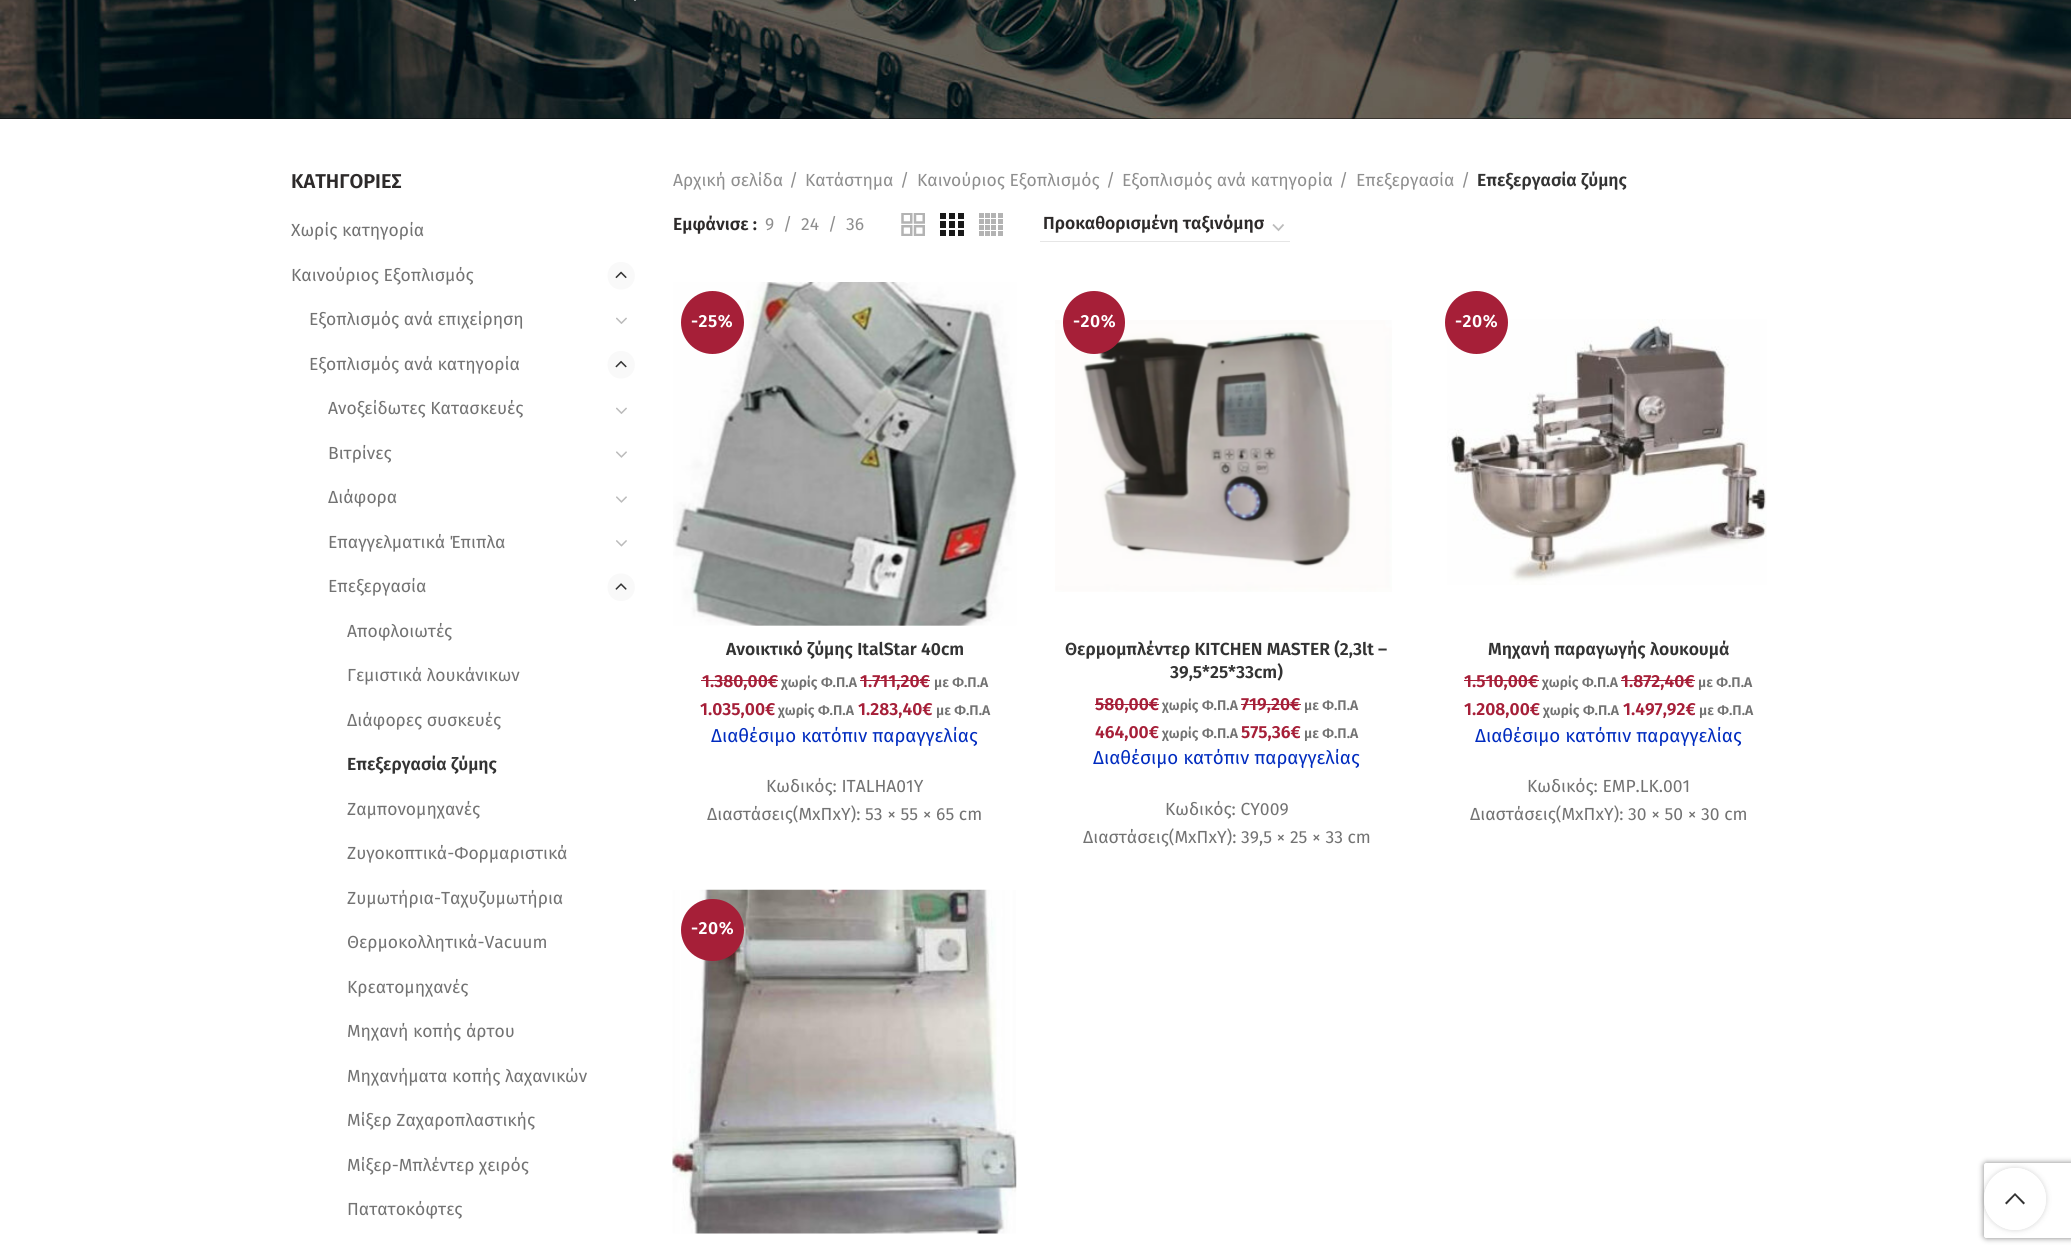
#include <cairo.h>
#include <math.h>
#include <stddef.h>


static void set_color(cairo_t *cr, unsigned color) {
    cairo_set_source_rgb(cr, (color >> 16) / 255.0, (color >> 8 & 255) / 255.0, (color & 255) / 255.0);
}

static void draw_text(cairo_t *cr, double x, double y, const char *s, const char *family, double size, int italic, int bold, unsigned color) {
    cairo_select_font_face(cr, family, italic ? CAIRO_FONT_SLANT_ITALIC : CAIRO_FONT_SLANT_NORMAL,
        bold ? CAIRO_FONT_WEIGHT_BOLD : CAIRO_FONT_WEIGHT_NORMAL);
    cairo_set_font_size(cr, size);
    set_color(cr, color);
    cairo_move_to(cr, x, y);
    cairo_show_text(cr, s);
}

static void draw_spaced(cairo_t *cr, double x, double y, const char *s, double letter, double word) {
    cairo_move_to(cr, x, y);
    while (*s) {
        char ch[5] = {0};
        int n = 0;
        do ch[n++] = *s++; while ((*s & 0xC0) == 0x80);
        cairo_show_text(cr, ch);
        cairo_rel_move_to(cr, letter + word * (*ch == ' '), 0);
    }
}

static void fill_rect(cairo_t *cr, double x, double y, double w, double h, unsigned color) {
    set_color(cr, color);
    cairo_rectangle(cr, x, y, w, h);
    cairo_fill(cr);
}

static void rounded_rect(cairo_t *cr, double x, double y, double w, double h, double r) {
    cairo_new_sub_path(cr);
    cairo_arc(cr, x + w - r, y + h - r, r, 0, M_PI / 2);
    cairo_arc(cr, x + r, y + h - r, r, M_PI / 2, M_PI);
    cairo_arc(cr, x + r, y + r, r, M_PI, 1.5 * M_PI);
    cairo_arc(cr, x + w - r, y + r, r, 1.5 * M_PI, 2 * M_PI);
    cairo_close_path(cr);
}

static void draw_shadow(cairo_t *cr, double x, double y, double w, double h, double r, double blur, double alpha) {
    cairo_push_group_with_content(cr, CAIRO_CONTENT_ALPHA);
    cairo_set_operator(cr, CAIRO_OPERATOR_SOURCE);
    for (int i = 15; i >= -15 && fmin(w, h) + blur * i / 3 > 0; i -= 2) {
        double e = blur * i / 6;
        cairo_set_source_rgba(cr, 0, 0, 0, alpha * erfc((i - 1) / 8.5) / 2);
        rounded_rect(cr, x - e, y - e, w + 2 * e, h + 2 * e, fmax(0, fmin(r + e + blur * .6, fmin(w, h) / 2 + e)));
        cairo_fill(cr);
    }
    cairo_pattern_t *soft = cairo_pop_group(cr);
    cairo_mask(cr, soft);
    cairo_pattern_destroy(soft);
}

static void draw_image(cairo_t *cr, const char *path, double x, double y, double w, double h) {
    cairo_surface_t *image = cairo_image_surface_create_from_png(path);
    cairo_save(cr);
    cairo_set_source_surface(cr, image, x, y);
    cairo_rectangle(cr, x, y, w, h);
    cairo_fill(cr);
    cairo_restore(cr);
    cairo_surface_destroy(image);
}

int main(void) {
    cairo_surface_t *surface = cairo_image_surface_create(CAIRO_FORMAT_RGB24, 2071, 1255);
    cairo_t *cr = cairo_create(surface);
    cairo_font_options_t *options = cairo_font_options_create();
    cairo_font_options_set_hint_metrics(options, CAIRO_HINT_METRICS_OFF);
    cairo_font_options_set_hint_style(options, CAIRO_HINT_STYLE_NONE);
    cairo_set_font_options(cr, options);
    cairo_set_miter_limit(cr, 4);
    set_color(cr, 0xFFFFFF);
    cairo_paint(cr);
    fill_rect(cr, 0, 118, 2071, 1, 0x0A0A0A);
    draw_image(cr, "assets/img1.png", 0, 0, 2071, 119);
    set_color(cr, 0xFFFFFF);
    cairo_new_path(cr);
    cairo_move_to(cr, 659, -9);
    cairo_line_to(cr, 659, -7);
    cairo_line_to(cr, 630, -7);
    cairo_line_to(cr, 636.5, -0.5);
    cairo_line_to(cr, 635, 1);
    cairo_line_to(cr, 626, -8);
    cairo_line_to(cr, 635, -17);
    cairo_line_to(cr, 636.5, -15.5);
    cairo_line_to(cr, 630, -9);
    cairo_close_path(cr);
    cairo_fill(cr);
    draw_text(cr, 291, 188, "ΚΑΤΗΓΟΡΙΕΣ", "Fira Sans SemiBold", 20, 0, 0, 0x2D2A2A);
    draw_text(cr, 291, 236, "Χωρίς κατηγορία", "Fira Sans", 17.5, 0, 0, 0x727272);
    draw_text(cr, 291, 281, "Καινούριος Εξοπλισμός", "Fira Sans", 17.5, 0, 0, 0x727272);
    set_color(cr, 0xF9F9F9);
    cairo_new_path(cr);
    cairo_move_to(cr, 621, 289.5);
    cairo_curve_to(cr, 603, 289.5, 603, 262, 621, 262);
    cairo_curve_to(cr, 639.5, 262, 639.5, 289.5, 621, 289.5);
    cairo_close_path(cr);
    cairo_fill(cr);
    draw_image(cr, "assets/img2.png", 615, 271, 12, 8);
    draw_text(cr, 309, 325, "Εξοπλισμός ανά επιχείρηση", "Fira Sans", 17.5, 0, 0, 0x727272);
    draw_image(cr, "assets/img3.png", 616, 317, 11, 7);
    draw_text(cr, 309, 370, "Εξοπλισμός ανά κατηγορία", "Fira Sans", 17.5, 0, 0, 0x727272);
    set_color(cr, 0xF9F9F9);
    cairo_new_path(cr);
    cairo_move_to(cr, 621, 378.5);
    cairo_curve_to(cr, 603, 378.5, 603, 351, 621, 351);
    cairo_curve_to(cr, 639.5, 351, 639.5, 378.5, 621, 378.5);
    cairo_close_path(cr);
    cairo_fill(cr);
    draw_image(cr, "assets/img4.png", 615, 360, 12, 8);
    draw_text(cr, 328, 414, "Ανοξείδωτες Κατασκευές", "Fira Sans", 17.5, 0, 0, 0x727272);
    draw_image(cr, "assets/img3.png", 616, 407, 11, 7);
    draw_text(cr, 328, 459, "Βιτρίνες", "Fira Sans", 17.5, 0, 0, 0x727272);
    draw_image(cr, "assets/img5.png", 616, 451, 11, 7);
    draw_text(cr, 328, 503, "Διάφορα", "Fira Sans", 17.5, 0, 0, 0x727272);
    draw_image(cr, "assets/img5.png", 616, 496, 11, 7);
    draw_text(cr, 328, 548, "Επαγγελματικά Έπιπλα", "Fira Sans", 17.5, 0, 0, 0x727272);
    draw_image(cr, "assets/img6.png", 616, 540, 11, 7);
    draw_text(cr, 328, 592, "Επεξεργασία", "Fira Sans", 17.5, 0, 0, 0x727272);
    set_color(cr, 0xF9F9F9);
    cairo_new_path(cr);
    cairo_move_to(cr, 621, 601);
    cairo_curve_to(cr, 603, 601, 603, 573.5, 621, 573.5);
    cairo_curve_to(cr, 639.5, 573.5, 639.5, 601, 621, 601);
    cairo_close_path(cr);
    cairo_fill(cr);
    draw_image(cr, "assets/img7.png", 615, 583, 12, 7);
    draw_text(cr, 347, 637, "Αποφλοιωτές", "Fira Sans", 17.5, 0, 0, 0x727272);
    draw_text(cr, 347, 681, "Γεμιστικά λουκάνικων", "Fira Sans", 17.5, 0, 0, 0x727272);
    draw_text(cr, 347, 726, "Διάφορες συσκευές", "Fira Sans", 17.5, 0, 0, 0x727272);
    draw_text(cr, 347, 770, "Επεξεργασία ζύμης", "Fira Sans SemiBold", 17.5, 0, 0, 0x333333);
    draw_text(cr, 347, 815, "Ζαμπονομηχανές", "Fira Sans", 17.5, 0, 0, 0x727272);
    draw_text(cr, 347, 859, "Ζυγοκοπτικά-Φορμαριστικά", "Fira Sans", 17.5, 0, 0, 0x727272);
    draw_text(cr, 347, 904, "Ζυμωτήρια-Ταχυζυμωτήρια", "Fira Sans", 17.5, 0, 0, 0x727272);
    draw_text(cr, 347, 948, "Θερμοκολλητικά-Vacuum", "Fira Sans", 17.5, 0, 0, 0x727272);
    draw_text(cr, 347, 993, "Κρεατομηχανές", "Fira Sans", 17.5, 0, 0, 0x727272);
    draw_text(cr, 347, 1037, "Μηχανή κοπής άρτου", "Fira Sans", 17.5, 0, 0, 0x727272);
    draw_text(cr, 347, 1082, "Μηχανήματα κοπής λαχανικών", "Fira Sans", 17.5, 0, 0, 0x727272);
    draw_text(cr, 347, 1126, "Μίξερ Ζαχαροπλαστικής", "Fira Sans", 17.5, 0, 0, 0x727272);
    draw_text(cr, 347, 1171, "Μίξερ-Μπλέντερ χειρός", "Fira Sans", 17.5, 0, 0, 0x727272);
    draw_text(cr, 347, 1215, "Πατατοκόφτες", "Fira Sans", 17.5, 0, 0, 0x727272);
    draw_text(cr, 673, 186, "Αρχική σελίδα", "Fira Sans", 17.5, 0, 0, 0x8E8E8E);
    draw_text(cr, 789, 186, "/", "Fira Sans", 17.5, 0, 0, 0x8E8E8E);
    draw_text(cr, 805, 186, "Κατάστημα", "Fira Sans", 17.5, 0, 0, 0x8E8E8E);
    draw_text(cr, 900, 186, "/", "Fira Sans", 17.5, 0, 0, 0x8E8E8E);
    draw_text(cr, 917, 186, "Καινούριος Εξοπλισμός", "Fira Sans", 17.5, 0, 0, 0x8E8E8E);
    draw_text(cr, 1106, 186, "/", "Fira Sans", 17.5, 0, 0, 0x8E8E8E);
    draw_text(cr, 1122, 186, "Εξοπλισμός ανά κατηγορία", "Fira Sans", 17.5, 0, 0, 0x8E8E8E);
    draw_text(cr, 1339, 186, "/", "Fira Sans", 17.5, 0, 0, 0x8E8E8E);
    draw_text(cr, 1356, 186, "Επεξεργασία", "Fira Sans", 17.5, 0, 0, 0x8E8E8E);
    draw_text(cr, 1461, 186, "/", "Fira Sans", 17.5, 0, 0, 0x8E8E8E);
    draw_text(cr, 1477, 186, "Επεξεργασία ζύμης", "Fira Sans SemiBold", 17.5, 0, 0, 0x333333);
    draw_text(cr, 673, 230, "Εμφάνισε :", "Fira Sans SemiBold", 17.5, 0, 0, 0x2D2A2A);
    draw_text(cr, 765, 230, "9", "Fira Sans", 17.5, 0, 0, 0x8E8E8E);
    draw_text(cr, 783, 230, "/", "Fira Sans", 17.5, 0, 0, 0x8E8E8E);
    draw_text(cr, 801, 230, "24", "Fira Sans", 17.5, 0, 0, 0x8E8E8E);
    draw_text(cr, 828, 230, "/", "Fira Sans", 17.5, 0, 0, 0x8E8E8E);
    draw_text(cr, 846, 230, "36", "Fira Sans", 17.5, 0, 0, 0x8E8E8E);
    draw_image(cr, "assets/img8.png", 901, 213, 24, 23);
    draw_image(cr, "assets/img9.png", 940, 213, 24, 23);
    draw_image(cr, "assets/img10.png", 979, 213, 24, 23);
    cairo_new_path(cr);
    cairo_move_to(cr, 1273, 224.5);
    cairo_line_to(cr, 1278.5, 230);
    cairo_line_to(cr, 1283.5, 224.5);
    set_color(cr, 0xBBBBBB);
    cairo_set_line_width(cr, 1.8);
    cairo_stroke(cr);
    fill_rect(cr, 1040, 241, 250, 1, 0xE6E6E6);
    draw_text(cr, 1043, 229, "Προκαθορισμένη ταξινόμησ", "Fira Sans SemiBold", 17.5, 0, 0, 0x2D2A2A);
    draw_image(cr, "assets/img11.png", 673, 282, 344, 344);
    set_color(cr, 0xA61F38);
    cairo_arc(cr, 712.5, 322.5, 31.5, 0, 2 * M_PI);
    cairo_fill(cr);
    set_color(cr, 0xFFFFFF);
    draw_spaced(cr, 691, 327, "-25%", 0.5, 0);
    draw_text(cr, 726, 655, "Ανοικτικό ζύμης ItalStar 40cm", "Fira Sans SemiBold", 17.5, 0, 0, 0x333333);
    draw_text(cr, 702, 687, "1.380,00€", "Fira Sans SemiBold", 17.5, 0, 0, 0xA61F38);
    fill_rect(cr, 701, 680, 77, 1, 0xA61F38);
    draw_text(cr, 781, 687, "χωρίς Φ.Π.Α", "Fira Sans SemiBold", 14, 0, 0, 0x727272);
    draw_text(cr, 860, 687, "1.711,20€", "Fira Sans SemiBold", 17.5, 0, 0, 0xA61F38);
    fill_rect(cr, 860, 680, 70, 1, 0xA61F38);
    draw_text(cr, 934, 687, "με Φ.Π.Α", "Fira Sans SemiBold", 14, 0, 0, 0x727272);
    draw_text(cr, 700, 715, "1.035,00€", "Fira Sans SemiBold", 17.5, 0, 0, 0xA61F38);
    draw_text(cr, 778, 715, "χωρίς Φ.Π.Α", "Fira Sans SemiBold", 14, 0, 0, 0x727272);
    draw_text(cr, 858, 715, "1.283,40€", "Fira Sans SemiBold", 17.5, 0, 0, 0xA61F38);
    draw_text(cr, 936, 715, "με Φ.Π.Α", "Fira Sans SemiBold", 14, 0, 0, 0x727272);
    draw_text(cr, 711, 742, "Διαθέσιμο κατόπιν παραγγελίας", "Fira Sans", 18.75, 0, 0, 0x002BBF);
    draw_text(cr, 766, 792, "Κωδικός: ITALHA01Y", "Fira Sans", 17.5, 0, 0, 0x727272);
    draw_text(cr, 707, 820, "Διαστάσεις(ΜxΠxΥ): 53 × 55 × 65 cm", "Fira Sans", 17.5, 0, 0, 0x727272);
    draw_image(cr, "assets/img12.png", 1055, 320, 337, 272);
    set_color(cr, 0xA61F38);
    rounded_rect(cr, 1063, 291, 62, 63, 31);
    cairo_fill(cr);
    cairo_select_font_face(cr, "Fira Sans SemiBold", CAIRO_FONT_SLANT_NORMAL, CAIRO_FONT_WEIGHT_NORMAL);
    set_color(cr, 0xFFFFFF);
    draw_spaced(cr, 1073, 327, "-20%", 0.5, 0);
    draw_text(cr, 1065, 655, "Θερμομπλέντερ KITCHEN MASTER (2,3lt –", "Fira Sans SemiBold", 17.5, 0, 0, 0x333333);
    draw_text(cr, 1170, 678, "39,5*25*33cm)", "Fira Sans SemiBold", 17.5, 0, 0, 0x333333);
    draw_text(cr, 1095, 710, "580,00€", "Fira Sans SemiBold", 17.5, 0, 0, 0xA61F38);
    fill_rect(cr, 1095, 704, 64, 1, 0xA61F38);
    draw_text(cr, 1162, 710, "χωρίς Φ.Π.Α", "Fira Sans SemiBold", 14, 0, 0, 0x727272);
    draw_text(cr, 1241, 710, "719,20€", "Fira Sans SemiBold", 17.5, 0, 0, 0xA61F38);
    fill_rect(cr, 1241, 704, 60, 1, 0xA61F38);
    draw_text(cr, 1304, 710, "με Φ.Π.Α", "Fira Sans SemiBold", 14, 0, 0, 0x727272);
    draw_text(cr, 1095, 738, "464,00€", "Fira Sans SemiBold", 17.5, 0, 0, 0xA61F38);
    draw_text(cr, 1162, 738, "χωρίς Φ.Π.Α", "Fira Sans SemiBold", 14, 0, 0, 0x727272);
    draw_text(cr, 1241, 738, "575,36€", "Fira Sans SemiBold", 17.5, 0, 0, 0xA61F38);
    draw_text(cr, 1304, 738, "με Φ.Π.Α", "Fira Sans SemiBold", 14, 0, 0, 0x727272);
    draw_text(cr, 1093, 764, "Διαθέσιμο κατόπιν παραγγελίας", "Fira Sans", 18.75, 0, 0, 0x002BBF);
    draw_text(cr, 1165, 815, "Κωδικός: CY009", "Fira Sans", 17.5, 0, 0, 0x727272);
    draw_text(cr, 1083, 843, "Διαστάσεις(ΜxΠxΥ): 39,5 × 25 × 33 cm", "Fira Sans", 17.5, 0, 0, 0x727272);
    draw_image(cr, "assets/img13.png", 1447, 319, 320, 266);
    set_color(cr, 0xA61F38);
    cairo_arc(cr, 1476.5, 322.5, 31.5, 0, 2 * M_PI);
    cairo_fill(cr);
    cairo_select_font_face(cr, "Fira Sans SemiBold", CAIRO_FONT_SLANT_NORMAL, CAIRO_FONT_WEIGHT_NORMAL);
    set_color(cr, 0xFFFFFF);
    draw_spaced(cr, 1455, 327, "-20%", 0.5, 0);
    draw_text(cr, 1488, 655, "Μηχανή παραγωγής λουκουμά", "Fira Sans SemiBold", 17.5, 0, 0, 0x333333);
    draw_text(cr, 1464, 687, "1.510,00€", "Fira Sans SemiBold", 17.5, 0, 0, 0xA61F38);
    fill_rect(cr, 1464, 680, 75, 1, 0xA61F38);
    draw_text(cr, 1542, 687, "χωρίς Φ.Π.Α", "Fira Sans SemiBold", 14, 0, 0, 0x727272);
    draw_text(cr, 1621, 687, "1.872,40€", "Fira Sans SemiBold", 17.5, 0, 0, 0xA61F38);
    fill_rect(cr, 1621, 680, 74, 1, 0xA61F38);
    draw_text(cr, 1698, 687, "με Φ.Π.Α", "Fira Sans SemiBold", 14, 0, 0, 0x727272);
    draw_text(cr, 1464, 715, "1.208,00€", "Fira Sans SemiBold", 17.5, 0, 0, 0xA61F38);
    draw_text(cr, 1543, 715, "χωρίς Φ.Π.Α", "Fira Sans SemiBold", 14, 0, 0, 0x727272);
    draw_text(cr, 1623, 715, "1.497,92€", "Fira Sans SemiBold", 17.5, 0, 0, 0xA61F38);
    draw_text(cr, 1699, 715, "με Φ.Π.Α", "Fira Sans SemiBold", 14, 0, 0, 0x727272);
    draw_text(cr, 1475, 742, "Διαθέσιμο κατόπιν παραγγελίας", "Fira Sans", 18.75, 0, 0, 0x002BBF);
    draw_text(cr, 1527, 792, "Κωδικός: EMP.LK.001", "Fira Sans", 17.5, 0, 0, 0x727272);
    draw_text(cr, 1470, 820, "Διαστάσεις(ΜxΠxΥ): 30 × 50 × 30 cm", "Fira Sans", 17.5, 0, 0, 0x727272);
    draw_image(cr, "assets/img14.png", 672, 889, 345, 345);
    set_color(cr, 0xA61F38);
    rounded_rect(cr, 681, 899, 63, 62, 31);
    cairo_fill(cr);
    cairo_select_font_face(cr, "Fira Sans SemiBold", CAIRO_FONT_SLANT_NORMAL, CAIRO_FONT_WEIGHT_NORMAL);
    set_color(cr, 0xFFFFFF);
    draw_spaced(cr, 691, 934, "-20%", 0.5, 0);
    cairo_save(cr);
    cairo_set_fill_rule(cr, CAIRO_FILL_RULE_EVEN_ODD);
    cairo_new_path(cr);
    cairo_move_to(cr, 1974, 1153);
    cairo_line_to(cr, 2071, 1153);
    cairo_line_to(cr, 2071, 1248);
    cairo_line_to(cr, 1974, 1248);
    cairo_close_path(cr);
    cairo_move_to(cr, 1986.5, 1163);
    cairo_line_to(cr, 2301.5, 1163);
    cairo_curve_to(cr, 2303, 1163, 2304, 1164, 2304, 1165.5);
    cairo_line_to(cr, 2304, 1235.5);
    cairo_curve_to(cr, 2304, 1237, 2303, 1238, 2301.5, 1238);
    cairo_line_to(cr, 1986.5, 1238);
    cairo_curve_to(cr, 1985, 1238, 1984, 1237, 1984, 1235.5);
    cairo_line_to(cr, 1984, 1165.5);
    cairo_curve_to(cr, 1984, 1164, 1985, 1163, 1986.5, 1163);
    cairo_close_path(cr);
    cairo_clip(cr);
    set_color(cr, 0x808080);
    draw_shadow(cr, 1984, 1163, 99, 75, 2.5, 3, 1);
    cairo_restore(cr);
    cairo_save(cr);
    cairo_set_fill_rule(cr, CAIRO_FILL_RULE_EVEN_ODD);
    cairo_new_path(cr);
    cairo_move_to(cr, 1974, 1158);
    cairo_line_to(cr, 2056, 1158);
    cairo_line_to(cr, 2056, 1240);
    cairo_line_to(cr, 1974, 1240);
    cairo_close_path(cr);
    cairo_move_to(cr, 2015, 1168);
    cairo_curve_to(cr, 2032, 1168, 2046, 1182, 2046, 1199);
    cairo_curve_to(cr, 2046, 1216, 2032, 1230, 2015, 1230);
    cairo_curve_to(cr, 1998, 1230, 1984, 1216, 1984, 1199);
    cairo_curve_to(cr, 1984, 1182, 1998, 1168, 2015, 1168);
    cairo_close_path(cr);
    cairo_clip(cr);
    set_color(cr, 0x000000);
    draw_shadow(cr, 1984, 1168, 62, 62, 31, 3, 0.17);
    cairo_restore(cr);
    cairo_set_source_rgba(cr, 1, 1, 1, 0.9);
    cairo_arc(cr, 2015, 1199, 31, 0, 2 * M_PI);
    cairo_fill(cr);
    set_color(cr, 0x333333);
    cairo_new_path(cr);
    cairo_move_to(cr, 2015, 1193);
    cairo_line_to(cr, 2025, 1203);
    cairo_line_to(cr, 2023.5, 1204.5);
    cairo_line_to(cr, 2015, 1195.5);
    cairo_line_to(cr, 2006.5, 1204.5);
    cairo_line_to(cr, 2005, 1203);
    cairo_close_path(cr);
    cairo_fill(cr);
    cairo_surface_write_to_png(surface, "output.png");
    cairo_font_options_destroy(options);
    cairo_destroy(cr);
    cairo_surface_destroy(surface);
    return 0;
}
